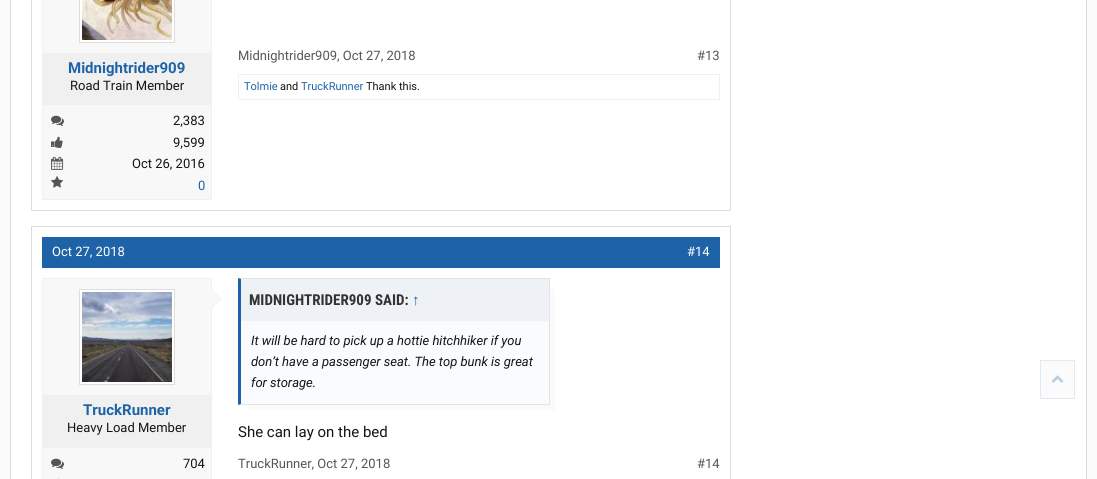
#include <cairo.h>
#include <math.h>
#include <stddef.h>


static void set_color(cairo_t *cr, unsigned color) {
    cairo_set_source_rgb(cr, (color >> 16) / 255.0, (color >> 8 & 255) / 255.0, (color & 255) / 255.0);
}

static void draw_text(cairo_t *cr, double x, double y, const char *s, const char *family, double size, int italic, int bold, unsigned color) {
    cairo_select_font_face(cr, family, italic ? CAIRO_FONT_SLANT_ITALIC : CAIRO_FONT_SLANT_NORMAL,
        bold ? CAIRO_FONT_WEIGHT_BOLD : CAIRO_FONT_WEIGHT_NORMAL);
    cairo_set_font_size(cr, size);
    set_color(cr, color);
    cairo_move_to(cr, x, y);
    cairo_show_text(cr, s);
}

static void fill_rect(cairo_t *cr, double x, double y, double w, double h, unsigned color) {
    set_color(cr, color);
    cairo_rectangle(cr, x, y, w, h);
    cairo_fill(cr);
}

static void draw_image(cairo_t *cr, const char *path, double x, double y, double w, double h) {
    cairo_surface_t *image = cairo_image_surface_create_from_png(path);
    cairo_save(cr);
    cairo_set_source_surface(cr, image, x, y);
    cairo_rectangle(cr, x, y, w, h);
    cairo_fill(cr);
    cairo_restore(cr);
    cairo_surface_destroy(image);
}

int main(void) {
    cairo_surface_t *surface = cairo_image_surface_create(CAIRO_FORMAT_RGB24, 1097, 479);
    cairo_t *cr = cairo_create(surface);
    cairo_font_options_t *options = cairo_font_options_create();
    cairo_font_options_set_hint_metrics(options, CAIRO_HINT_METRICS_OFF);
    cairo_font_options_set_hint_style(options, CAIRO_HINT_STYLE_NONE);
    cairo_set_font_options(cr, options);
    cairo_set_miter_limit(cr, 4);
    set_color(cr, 0xFBFBFB);
    cairo_paint(cr);
    fill_rect(cr, 11, 0, 1075, 479, 0xFFFFFF);
    fill_rect(cr, 1086, 0, 1, 479, 0xDDDDDD);
    fill_rect(cr, 10, 0, 1, 479, 0xDDDDDD);
    cairo_rectangle(cr, 31.5, -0.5, 699, 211);
    cairo_set_line_width(cr, 1);
    cairo_stroke(cr);
    fill_rect(cr, 42, 0, 170, 200, 0xF0F0F0);
    fill_rect(cr, 43, 0, 168, 53, 0xF8F8F8);
    set_color(cr, 0xFFFFFF);
    cairo_rectangle(cr, 79.5, -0.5, 95, 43);
    cairo_fill_preserve(cr);
    set_color(cr, 0xDDDDDD);
    cairo_stroke(cr);
    draw_image(cr, "assets/img1.png", 82, 0, 90, 40);
    draw_text(cr, 68, 73, "Midnightrider909", "Roboto", 15, 0, 1, 0x1E63A8);
    draw_text(cr, 70, 90, "Road Train Member", "Roboto", 13, 0, 0, 0x141414);
    fill_rect(cr, 43, 105, 168, 94, 0xF8F8F8);
    draw_image(cr, "assets/img2.png", 51, 115, 13, 11);
    draw_text(cr, 173, 125, "2,383", "Roboto", 13, 0, 0, 0x141414);
    draw_image(cr, "assets/img3.png", 51, 136, 12, 12);
    draw_text(cr, 173, 147, "9,599", "Roboto", 13, 0, 0, 0x141414);
    draw_image(cr, "assets/img4.png", 51, 156, 13, 14);
    draw_text(cr, 132, 168, "Oct 26, 2016", "Roboto", 13, 0, 0, 0x141414);
    draw_image(cr, "assets/img5.png", 51, 176, 12, 12);
    draw_text(cr, 198, 190, "0", "Roboto", 13, 0, 0, 0x1E63A8);
    draw_text(cr, 238, 60, "Midnightrider909, Oct 27, 2018", "Roboto", 13, 0, 0, 0x565656);
    draw_text(cr, 697, 60, "#13", "Roboto", 13, 0, 0, 0x565656);
    cairo_rectangle(cr, 238.5, 74.5, 481, 25);
    set_color(cr, 0xF0F0F0);
    cairo_stroke(cr);
    draw_text(cr, 244, 90, "Tolmie", "Roboto", 11, 0, 0, 0x1E63A8);
    draw_text(cr, 280, 90, "and", "Roboto", 11, 0, 0, 0x141414);
    draw_text(cr, 301, 90, "TruckRunner", "Roboto", 11, 0, 0, 0x1E63A8);
    draw_text(cr, 366, 90, "Thank this.", "Roboto", 11, 0, 0, 0x141414);
    cairo_rectangle(cr, 31.5, 226.5, 699, 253);
    set_color(cr, 0xDDDDDD);
    cairo_stroke(cr);
    fill_rect(cr, 42, 237, 678, 31, 0x1E63A8);
    draw_text(cr, 52, 256, "Oct 27, 2018", "Roboto", 13, 0, 0, 0xFFFFFF);
    draw_text(cr, 687, 256, "#14", "Roboto", 13, 0, 0, 0xFFFFFF);
    fill_rect(cr, 42, 278, 170, 201, 0xF0F0F0);
    fill_rect(cr, 43, 279, 168, 116, 0xF8F8F8);
    set_color(cr, 0xFFFFFF);
    cairo_rectangle(cr, 79.5, 289.5, 95, 95);
    cairo_fill_preserve(cr);
    set_color(cr, 0xDDDDDD);
    cairo_stroke(cr);
    draw_image(cr, "assets/img6.png", 82, 292, 90, 90);
    set_color(cr, 0xF0F0F0);
    cairo_new_path(cr);
    cairo_move_to(cr, 211, 309);
    cairo_line_to(cr, 211, 289);
    cairo_line_to(cr, 221, 299);
    cairo_close_path(cr);
    cairo_fill(cr);
    set_color(cr, 0xF8F8F8);
    cairo_new_path(cr);
    cairo_move_to(cr, 210, 309);
    cairo_line_to(cr, 210, 289);
    cairo_line_to(cr, 220, 299);
    cairo_close_path(cr);
    cairo_fill(cr);
    draw_text(cr, 83, 415, "TruckRunner", "Roboto", 15, 0, 1, 0x1E63A8);
    draw_text(cr, 67, 432, "Heavy Load Member", "Roboto", 13, 0, 0, 0x141414);
    fill_rect(cr, 43, 448, 168, 31, 0xF8F8F8);
    draw_image(cr, "assets/img2.png", 51, 458, 13, 11);
    draw_text(cr, 183, 468, "704", "Roboto", 13, 0, 0, 0x141414);
    fill_rect(cr, 58, 478, 1, 1, 0xDEDEDE);
    set_color(cr, 0xFAFAFA);
    cairo_new_path(cr);
    cairo_move_to(cr, 249, 405);
    cairo_line_to(cr, 249, 410);
    cairo_line_to(cr, 555, 410);
    cairo_line_to(cr, 555, 289);
    cairo_line_to(cr, 550, 289);
    cairo_line_to(cr, 550, 405);
    cairo_close_path(cr);
    cairo_fill(cr);
    set_color(cr, 0xE4E4E4);
    cairo_new_path(cr);
    cairo_move_to(cr, 238, 278);
    cairo_line_to(cr, 550, 278);
    cairo_line_to(cr, 549, 279);
    cairo_line_to(cr, 241, 279);
    cairo_close_path(cr);
    cairo_fill(cr);
    fill_rect(cr, 549, 278, 1, 127, 0xE4E4E4);
    cairo_new_path(cr);
    cairo_move_to(cr, 550, 405);
    cairo_line_to(cr, 238, 405);
    cairo_line_to(cr, 241, 404);
    cairo_line_to(cr, 549, 404);
    cairo_close_path(cr);
    cairo_fill(cr);
    set_color(cr, 0x1E63A8);
    cairo_new_path(cr);
    cairo_move_to(cr, 238, 405);
    cairo_line_to(cr, 238, 278);
    cairo_line_to(cr, 241, 279);
    cairo_line_to(cr, 241, 404);
    cairo_close_path(cr);
    cairo_fill(cr);
    fill_rect(cr, 241, 279, 308, 42, 0xEEF2F7);
    draw_text(cr, 249, 305, "MIDNIGHTRIDER909 SAID:", "Roboto Condensed", 15, 0, 1, 0x333333);
    draw_text(cr, 412, 305, "↑", "Liberation Serif", 15, 0, 1, 0x1E63A8);
    fill_rect(cr, 241, 321, 308, 83, 0xF9FBFE);
    draw_text(cr, 251, 345, "It will be hard to pick up a hottie hitchhiker if you", "Roboto", 13, 1, 0, 0x141414);
    draw_text(cr, 251, 366, "don’t have a passenger seat. The top bunk is great", "Roboto", 13, 1, 0, 0x141414);
    draw_text(cr, 251, 387, "for storage.", "Roboto", 13, 1, 0, 0x141414);
    draw_text(cr, 238, 437, "She can lay on the bed", "Roboto", 15, 0, 0, 0x141414);
    draw_text(cr, 238, 468, "TruckRunner, Oct 27, 2018", "Roboto", 13, 0, 0, 0x565656);
    draw_text(cr, 697, 468, "#14", "Roboto", 13, 0, 0, 0x565656);
    set_color(cr, 0xFBFBFB);
    cairo_rectangle(cr, 1040.5, 360.5, 34, 38);
    cairo_fill_preserve(cr);
    set_color(cr, 0xDFEAF6);
    cairo_stroke(cr);
    draw_image(cr, "assets/img7.png", 1051, 375, 13, 8);
    cairo_surface_write_to_png(surface, "output.png");
    cairo_font_options_destroy(options);
    cairo_destroy(cr);
    cairo_surface_destroy(surface);
    return 0;
}
